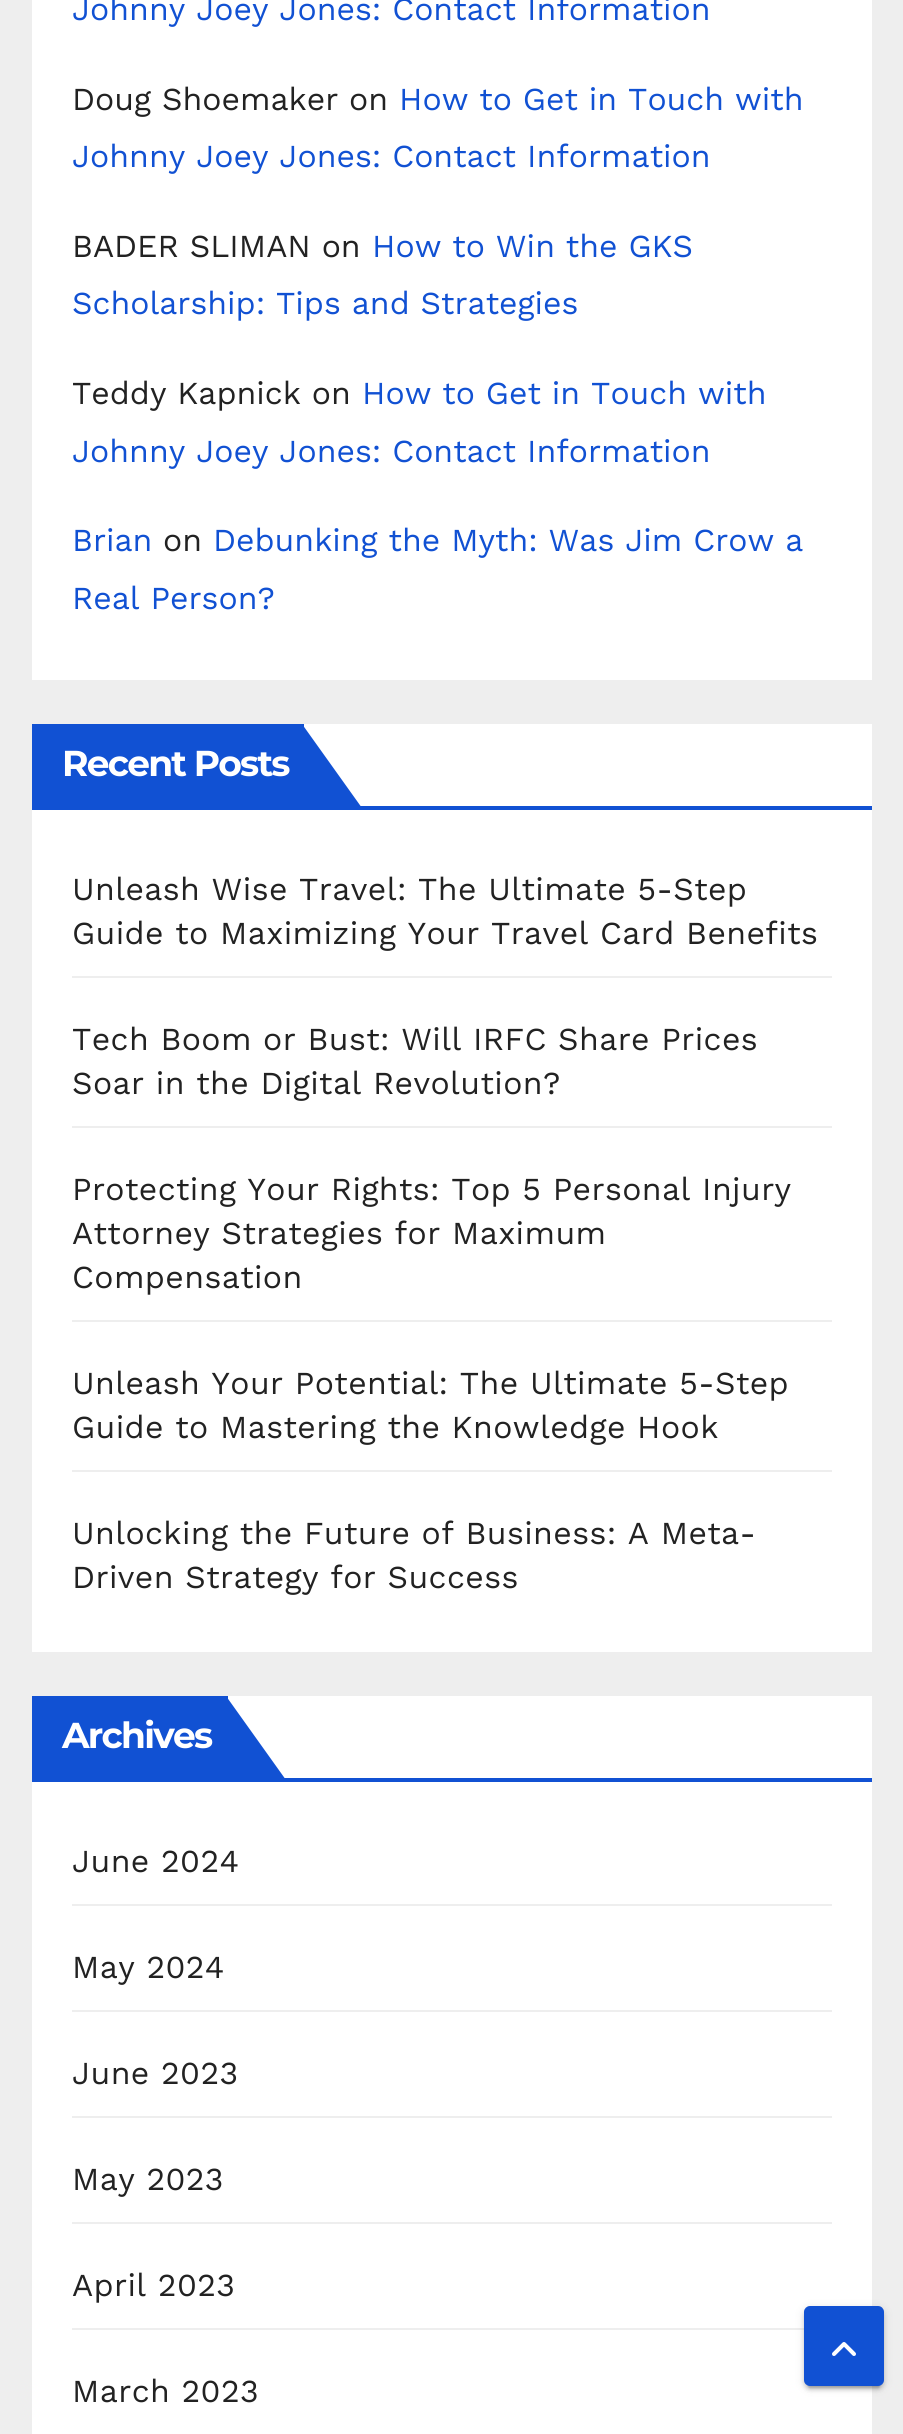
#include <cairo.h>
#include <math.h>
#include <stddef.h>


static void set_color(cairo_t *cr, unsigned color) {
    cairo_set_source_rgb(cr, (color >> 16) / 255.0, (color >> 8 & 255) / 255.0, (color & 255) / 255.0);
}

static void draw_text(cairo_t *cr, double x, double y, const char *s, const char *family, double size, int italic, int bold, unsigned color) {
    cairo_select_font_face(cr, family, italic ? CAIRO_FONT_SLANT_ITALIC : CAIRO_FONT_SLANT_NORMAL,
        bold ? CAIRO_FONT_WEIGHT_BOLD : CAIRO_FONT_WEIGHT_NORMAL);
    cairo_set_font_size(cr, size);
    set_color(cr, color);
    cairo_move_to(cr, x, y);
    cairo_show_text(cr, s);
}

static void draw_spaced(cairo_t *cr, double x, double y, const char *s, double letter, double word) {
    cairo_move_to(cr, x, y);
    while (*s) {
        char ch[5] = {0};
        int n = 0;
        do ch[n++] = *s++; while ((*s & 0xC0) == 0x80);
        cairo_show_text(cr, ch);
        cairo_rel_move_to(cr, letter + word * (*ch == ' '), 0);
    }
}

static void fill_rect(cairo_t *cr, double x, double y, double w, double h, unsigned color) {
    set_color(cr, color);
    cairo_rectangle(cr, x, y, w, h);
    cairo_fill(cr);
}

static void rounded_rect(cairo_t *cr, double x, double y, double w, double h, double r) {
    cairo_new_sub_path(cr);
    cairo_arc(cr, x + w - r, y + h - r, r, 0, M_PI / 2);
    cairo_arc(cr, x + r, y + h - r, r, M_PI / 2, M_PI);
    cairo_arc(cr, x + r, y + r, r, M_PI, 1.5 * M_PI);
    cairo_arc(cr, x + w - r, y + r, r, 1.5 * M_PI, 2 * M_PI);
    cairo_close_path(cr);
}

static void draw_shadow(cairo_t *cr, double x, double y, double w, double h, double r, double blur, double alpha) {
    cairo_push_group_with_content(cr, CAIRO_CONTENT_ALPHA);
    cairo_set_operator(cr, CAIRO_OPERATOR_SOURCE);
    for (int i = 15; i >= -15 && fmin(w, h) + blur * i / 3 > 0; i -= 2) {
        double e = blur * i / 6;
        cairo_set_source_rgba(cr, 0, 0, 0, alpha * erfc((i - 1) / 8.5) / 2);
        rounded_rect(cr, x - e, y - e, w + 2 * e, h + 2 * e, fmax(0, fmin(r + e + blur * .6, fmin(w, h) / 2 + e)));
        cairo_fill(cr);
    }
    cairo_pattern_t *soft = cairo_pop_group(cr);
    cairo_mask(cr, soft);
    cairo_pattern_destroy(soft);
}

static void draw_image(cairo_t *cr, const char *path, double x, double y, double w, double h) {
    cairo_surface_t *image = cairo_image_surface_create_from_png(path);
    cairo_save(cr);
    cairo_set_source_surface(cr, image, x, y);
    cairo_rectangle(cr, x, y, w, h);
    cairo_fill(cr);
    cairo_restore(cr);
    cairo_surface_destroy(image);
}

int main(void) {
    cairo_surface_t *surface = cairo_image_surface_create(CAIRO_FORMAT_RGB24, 903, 2434);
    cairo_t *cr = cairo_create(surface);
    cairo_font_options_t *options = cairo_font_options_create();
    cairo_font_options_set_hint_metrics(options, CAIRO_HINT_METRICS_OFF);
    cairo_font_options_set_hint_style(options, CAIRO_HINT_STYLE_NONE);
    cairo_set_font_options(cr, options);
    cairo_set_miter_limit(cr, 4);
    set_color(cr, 0xEEEEEE);
    cairo_paint(cr);
    fill_rect(cr, 32, 0, 840, 680, 0xFFFFFF);
    draw_text(cr, 72, 20, "Johnny Joey Jones: Contact Information", "Work Sans", 32, 0, 0, 0x1151D3);
    draw_text(cr, 72, 110, "Doug Shoemaker on", "Work Sans", 32, 0, 0, 0x222222);
    draw_text(cr, 399, 110, "How to Get in Touch with", "Work Sans", 32, 0, 0, 0x1151D3);
    draw_text(cr, 72, 167, "Johnny Joey Jones: Contact Information", "Work Sans", 32, 0, 0, 0x1151D3);
    draw_text(cr, 72, 257, "BADER SLIMAN on", "Work Sans", 32, 0, 0, 0x222222);
    draw_text(cr, 372, 257, "How to Win the GKS", "Work Sans", 32, 0, 0, 0x1151D3);
    draw_text(cr, 72, 314, "Scholarship: Tips and Strategies", "Work Sans", 32, 0, 0, 0x1151D3);
    draw_text(cr, 72, 404, "Teddy Kapnick on", "Work Sans", 32, 0, 0, 0x222222);
    draw_text(cr, 362, 404, "How to Get in Touch with", "Work Sans", 32, 0, 0, 0x1151D3);
    draw_text(cr, 72, 462, "Johnny Joey Jones: Contact Information", "Work Sans", 32, 0, 0, 0x1151D3);
    draw_text(cr, 72, 551, "Brian", "Work Sans", 32, 0, 0, 0x1151D3);
    draw_text(cr, 163, 551, "on", "Work Sans", 32, 0, 0, 0x222222);
    draw_text(cr, 213, 551, "Debunking the Myth: Was Jim Crow a", "Work Sans", 32, 0, 0, 0x1151D3);
    draw_text(cr, 72, 609, "Real Person?", "Work Sans", 32, 0, 0, 0x1151D3);
    fill_rect(cr, 32, 724, 840, 928, 0xFFFFFF);
    fill_rect(cr, 32, 724, 272, 82, 0x1151D3);
    cairo_select_font_face(cr, "Montserrat", CAIRO_FONT_SLANT_NORMAL, CAIRO_FONT_WEIGHT_BOLD);
    cairo_set_font_size(cr, 36);
    set_color(cr, 0xFFFFFF);
    draw_spaced(cr, 62, 776, "Recent Posts", -1.75, 0);
    set_color(cr, 0x1151D3);
    cairo_new_path(cr);
    cairo_move_to(cr, 302, 808);
    cairo_line_to(cr, 302, 724);
    cairo_line_to(cr, 362, 808);
    cairo_close_path(cr);
    cairo_fill(cr);
    fill_rect(cr, 32, 806, 840, 4, 0x1151D3);
    fill_rect(cr, 72, 976, 760, 2, 0xEEEEEE);
    cairo_select_font_face(cr, "Work Sans", CAIRO_FONT_SLANT_NORMAL, CAIRO_FONT_WEIGHT_NORMAL);
    cairo_set_font_size(cr, 32);
    set_color(cr, 0x222222);
    draw_spaced(cr, 72, 900, "Unleash Wise Travel: The Ultimate 5-Step", 0.4, 0);
    draw_spaced(cr, 72, 944, "Guide to Maximizing Your Travel Card Benefits", 0.4, 0);
    fill_rect(cr, 72, 1126, 760, 2, 0xEEEEEE);
    set_color(cr, 0x222222);
    draw_spaced(cr, 72, 1050, "Tech Boom or Bust: Will IRFC Share Prices", 0.4, 0);
    draw_spaced(cr, 72, 1094, "Soar in the Digital Revolution?", 0.4, 0);
    fill_rect(cr, 72, 1320, 760, 2, 0xEEEEEE);
    set_color(cr, 0x222222);
    draw_spaced(cr, 72, 1200, "Protecting Your Rights: Top 5 Personal Injury", 0.4, 0);
    draw_spaced(cr, 72, 1244, "Attorney Strategies for Maximum", 0.4, 0);
    draw_spaced(cr, 72, 1288, "Compensation", 0.4, 0);
    fill_rect(cr, 72, 1470, 760, 2, 0xEEEEEE);
    set_color(cr, 0x222222);
    draw_spaced(cr, 72, 1394, "Unleash Your Potential: The Ultimate 5-Step", 0.4, 0);
    draw_spaced(cr, 72, 1438, "Guide to Mastering the Knowledge Hook", 0.4, 0);
    draw_spaced(cr, 72, 1544, "Unlocking the Future of Business: A Meta-", 0.4, 0);
    draw_spaced(cr, 72, 1588, "Driven Strategy for Success", 0.4, 0);
    fill_rect(cr, 32, 1696, 840, 738, 0xFFFFFF);
    fill_rect(cr, 32, 1696, 196, 82, 0x1151D3);
    cairo_select_font_face(cr, "Montserrat", CAIRO_FONT_SLANT_NORMAL, CAIRO_FONT_WEIGHT_BOLD);
    cairo_set_font_size(cr, 36);
    set_color(cr, 0xFFFFFF);
    draw_spaced(cr, 62, 1748, "Archives", -1.75, 0);
    set_color(cr, 0x1151D3);
    cairo_new_path(cr);
    cairo_move_to(cr, 226, 1780);
    cairo_line_to(cr, 226, 1696);
    cairo_line_to(cr, 286, 1780);
    cairo_close_path(cr);
    cairo_fill(cr);
    fill_rect(cr, 32, 1778, 840, 4, 0x1151D3);
    fill_rect(cr, 72, 1904, 760, 2, 0xEEEEEE);
    cairo_select_font_face(cr, "Work Sans", CAIRO_FONT_SLANT_NORMAL, CAIRO_FONT_WEIGHT_NORMAL);
    cairo_set_font_size(cr, 32);
    set_color(cr, 0x222222);
    draw_spaced(cr, 72, 1872, "June 2024", 0.4, 0);
    fill_rect(cr, 72, 2010, 760, 2, 0xEEEEEE);
    set_color(cr, 0x222222);
    draw_spaced(cr, 72, 1978, "May 2024", 0.4, 0);
    fill_rect(cr, 72, 2116, 760, 2, 0xEEEEEE);
    set_color(cr, 0x222222);
    draw_spaced(cr, 72, 2084, "June 2023", 0.4, 0);
    fill_rect(cr, 72, 2222, 760, 2, 0xEEEEEE);
    set_color(cr, 0x222222);
    draw_spaced(cr, 72, 2190, "May 2023", 0.4, 0);
    fill_rect(cr, 72, 2328, 732, 2, 0xEEEEEE);
    set_color(cr, 0x222222);
    draw_spaced(cr, 72, 2296, "April 2023", 0.4, 0);
    draw_spaced(cr, 72, 2402, "March 2023", 0.4, 0);
    set_color(cr, 0x000000);
    draw_shadow(cr, 804, 2308, 80, 80, 6, 5, 0.12);
    draw_shadow(cr, 808, 2316, 72, 72, 2, 1, 0.2);
    draw_shadow(cr, 804, 2310, 80, 80, 6, 2, 0.14);
    set_color(cr, 0x1151D3);
    rounded_rect(cr, 806, 2308, 76, 76, 4);
    cairo_fill_preserve(cr);
    cairo_set_line_width(cr, 4);
    cairo_stroke(cr);
    draw_image(cr, "assets/img1.png", 832, 2342, 24, 14);
    cairo_surface_write_to_png(surface, "output.png");
    cairo_font_options_destroy(options);
    cairo_destroy(cr);
    cairo_surface_destroy(surface);
    return 0;
}
